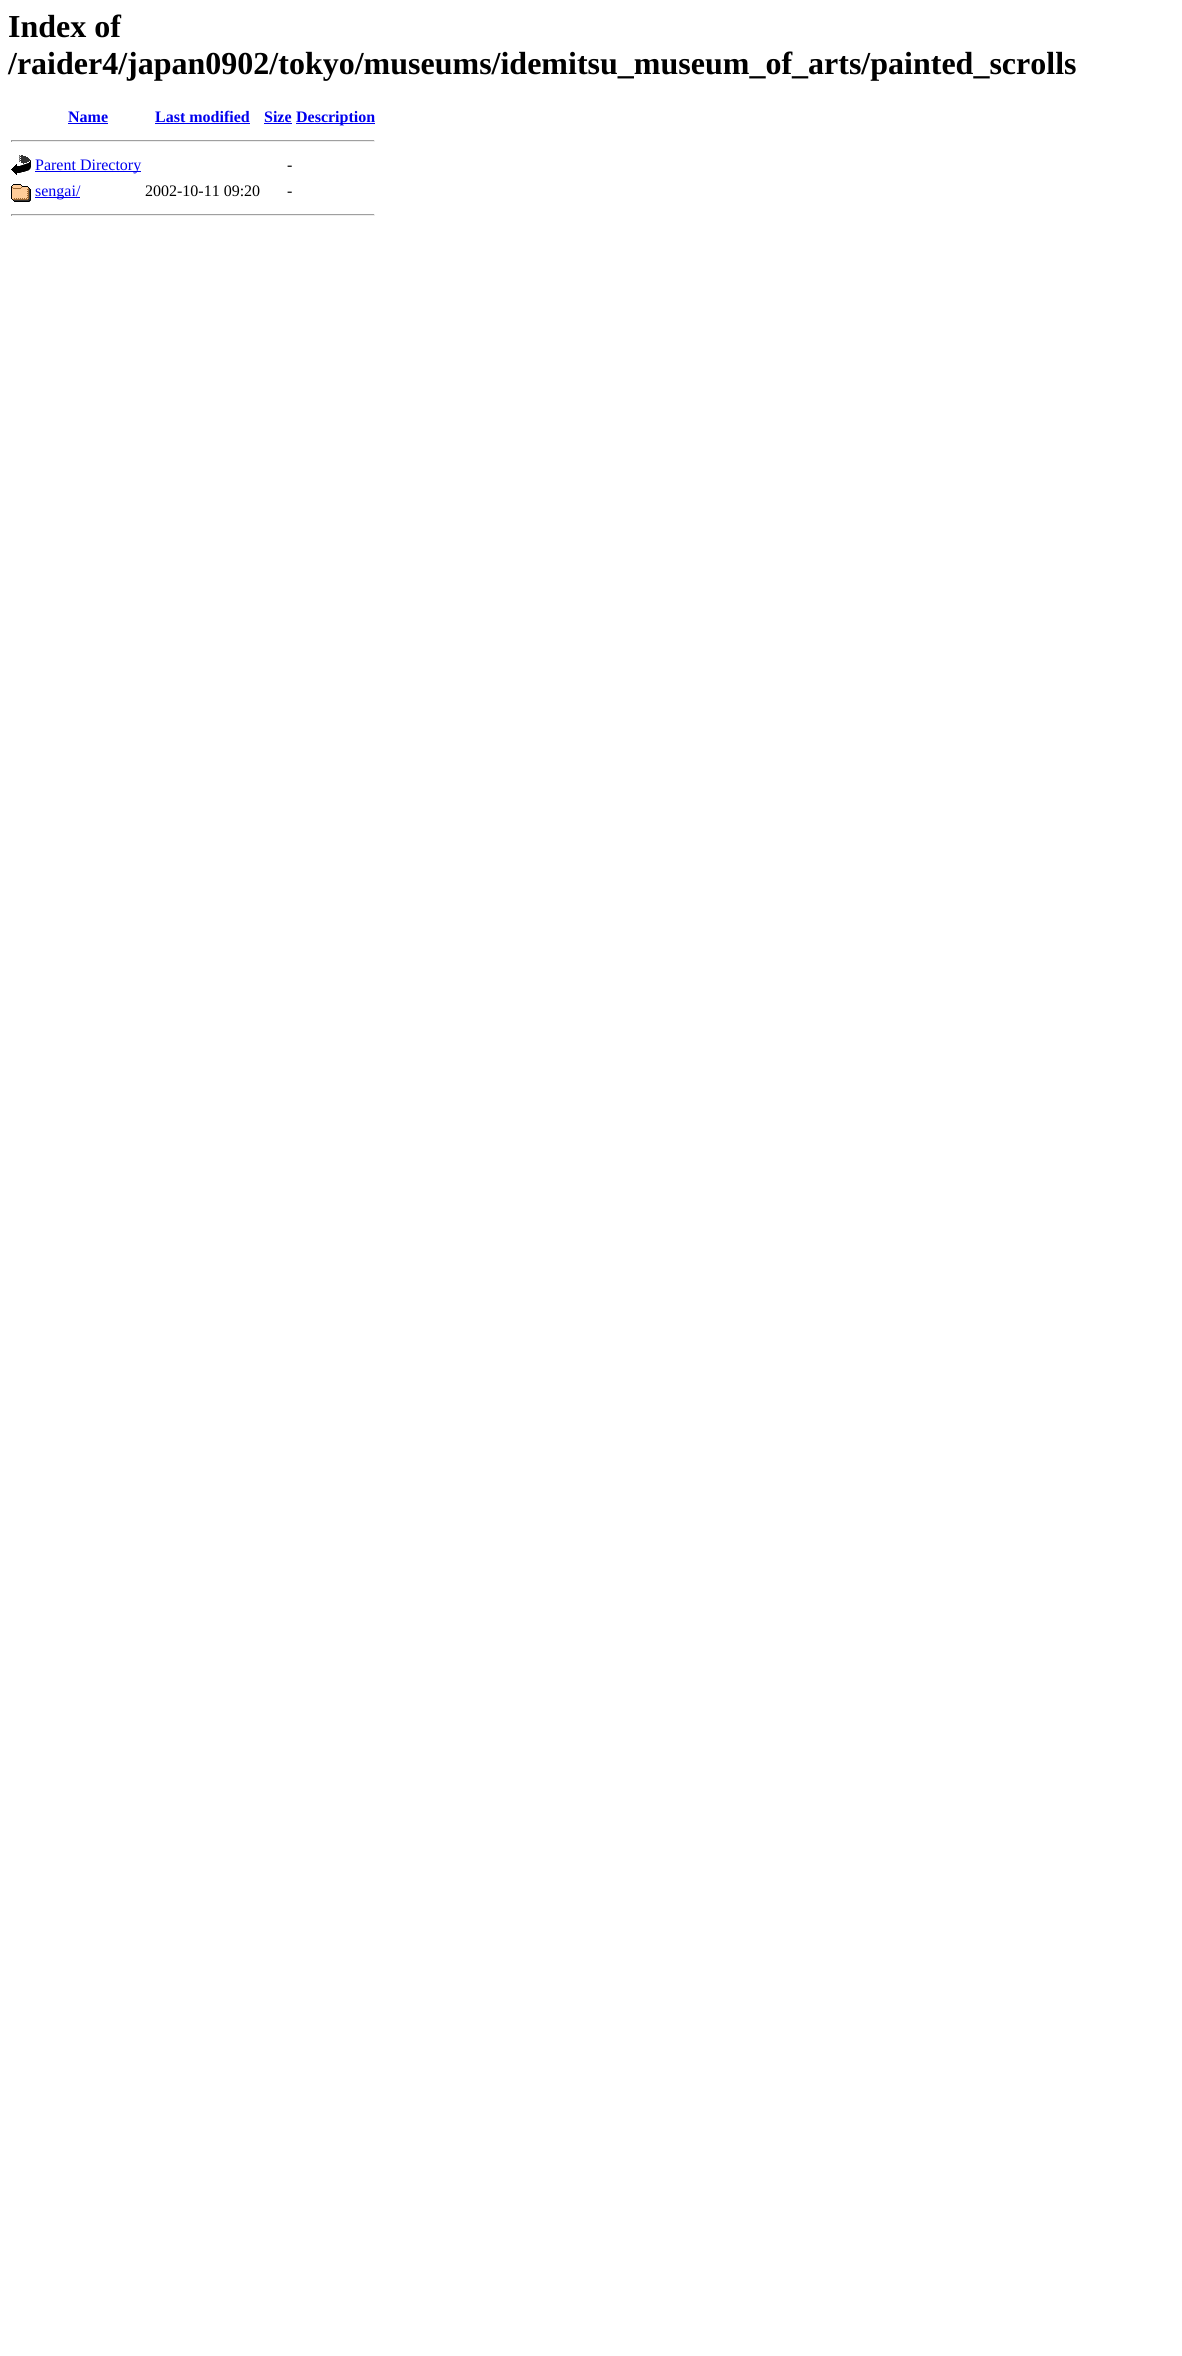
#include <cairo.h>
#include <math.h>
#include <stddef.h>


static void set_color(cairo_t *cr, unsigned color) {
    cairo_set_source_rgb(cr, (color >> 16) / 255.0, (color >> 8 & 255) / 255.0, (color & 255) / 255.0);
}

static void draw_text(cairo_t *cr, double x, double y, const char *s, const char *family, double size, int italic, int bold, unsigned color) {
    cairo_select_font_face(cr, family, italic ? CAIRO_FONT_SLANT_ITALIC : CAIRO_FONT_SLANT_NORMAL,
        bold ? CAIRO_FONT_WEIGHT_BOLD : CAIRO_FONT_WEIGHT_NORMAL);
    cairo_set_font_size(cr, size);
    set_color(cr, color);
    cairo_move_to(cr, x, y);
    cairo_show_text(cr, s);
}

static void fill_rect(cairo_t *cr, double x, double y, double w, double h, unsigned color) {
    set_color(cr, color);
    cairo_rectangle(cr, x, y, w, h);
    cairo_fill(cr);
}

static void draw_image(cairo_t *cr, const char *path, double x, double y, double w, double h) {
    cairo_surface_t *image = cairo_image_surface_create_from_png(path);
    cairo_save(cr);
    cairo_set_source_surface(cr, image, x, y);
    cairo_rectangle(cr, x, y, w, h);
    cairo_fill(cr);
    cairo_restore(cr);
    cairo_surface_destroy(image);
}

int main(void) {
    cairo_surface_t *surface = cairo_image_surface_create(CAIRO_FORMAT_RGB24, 1182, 2356);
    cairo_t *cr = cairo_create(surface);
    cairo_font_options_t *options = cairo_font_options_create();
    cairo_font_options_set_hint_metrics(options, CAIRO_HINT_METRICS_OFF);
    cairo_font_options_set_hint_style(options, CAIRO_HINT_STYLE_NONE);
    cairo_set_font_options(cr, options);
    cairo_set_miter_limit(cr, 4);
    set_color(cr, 0xFFFFFF);
    cairo_paint(cr);
    draw_text(cr, 8, 37, "Index of", "Liberation Serif", 32, 0, 1, 0x000000);
    draw_text(cr, 8, 74, "/raider4/japan0902/tokyo/museums/idemitsu_museum_of_arts/painted_scrolls", "Liberation Serif", 32, 0, 1, 0x000000);
    draw_text(cr, 68, 122, "Name", "Liberation Serif", 16, 0, 1, 0x0000EE);
    fill_rect(cr, 68, 123, 40, 1, 0x0000EE);
    draw_text(cr, 155, 122, "Last modified", "Liberation Serif", 16, 0, 1, 0x0000EE);
    fill_rect(cr, 155, 123, 95, 1, 0x0000EE);
    draw_text(cr, 264, 122, "Size", "Liberation Serif", 16, 0, 1, 0x0000EE);
    fill_rect(cr, 264, 123, 28, 1, 0x0000EE);
    fill_rect(cr, 296, 123, 79, 1, 0x0000EE);
    draw_text(cr, 296, 122, "Description", "Liberation Serif", 16, 0, 1, 0x0000EE);
    fill_rect(cr, 11, 140, 364, 1, 0x9F9F9F);
    fill_rect(cr, 374, 140, 1, 2, 0xEEEEEE);
    fill_rect(cr, 11, 141, 364, 1, 0xEEEEEE);
    fill_rect(cr, 11, 140, 1, 2, 0x9F9F9F);
    draw_image(cr, "assets/img1.png", 11, 155, 20, 20);
    fill_rect(cr, 35, 171, 106, 1, 0x0000EE);
    draw_text(cr, 35, 170, "Parent Directory", "Liberation Serif", 16, 0, 0, 0x0000EE);
    draw_text(cr, 287, 170, "-", "Liberation Serif", 16, 0, 0, 0x000000);
    draw_image(cr, "assets/img2.png", 11, 184, 20, 18);
    fill_rect(cr, 35, 197, 45, 1, 0x0000EE);
    draw_text(cr, 35, 196, "sengai/", "Liberation Serif", 16, 0, 0, 0x0000EE);
    draw_text(cr, 145, 196, "2002-10-11 09:20", "Liberation Serif", 16, 0, 0, 0x000000);
    draw_text(cr, 287, 196, "-", "Liberation Serif", 16, 0, 0, 0x000000);
    fill_rect(cr, 11, 214, 364, 1, 0x9F9F9F);
    fill_rect(cr, 374, 214, 1, 2, 0xEEEEEE);
    fill_rect(cr, 11, 215, 364, 1, 0xEEEEEE);
    fill_rect(cr, 11, 214, 1, 2, 0x9F9F9F);
    cairo_surface_write_to_png(surface, "output.png");
    cairo_font_options_destroy(options);
    cairo_destroy(cr);
    cairo_surface_destroy(surface);
    return 0;
}
